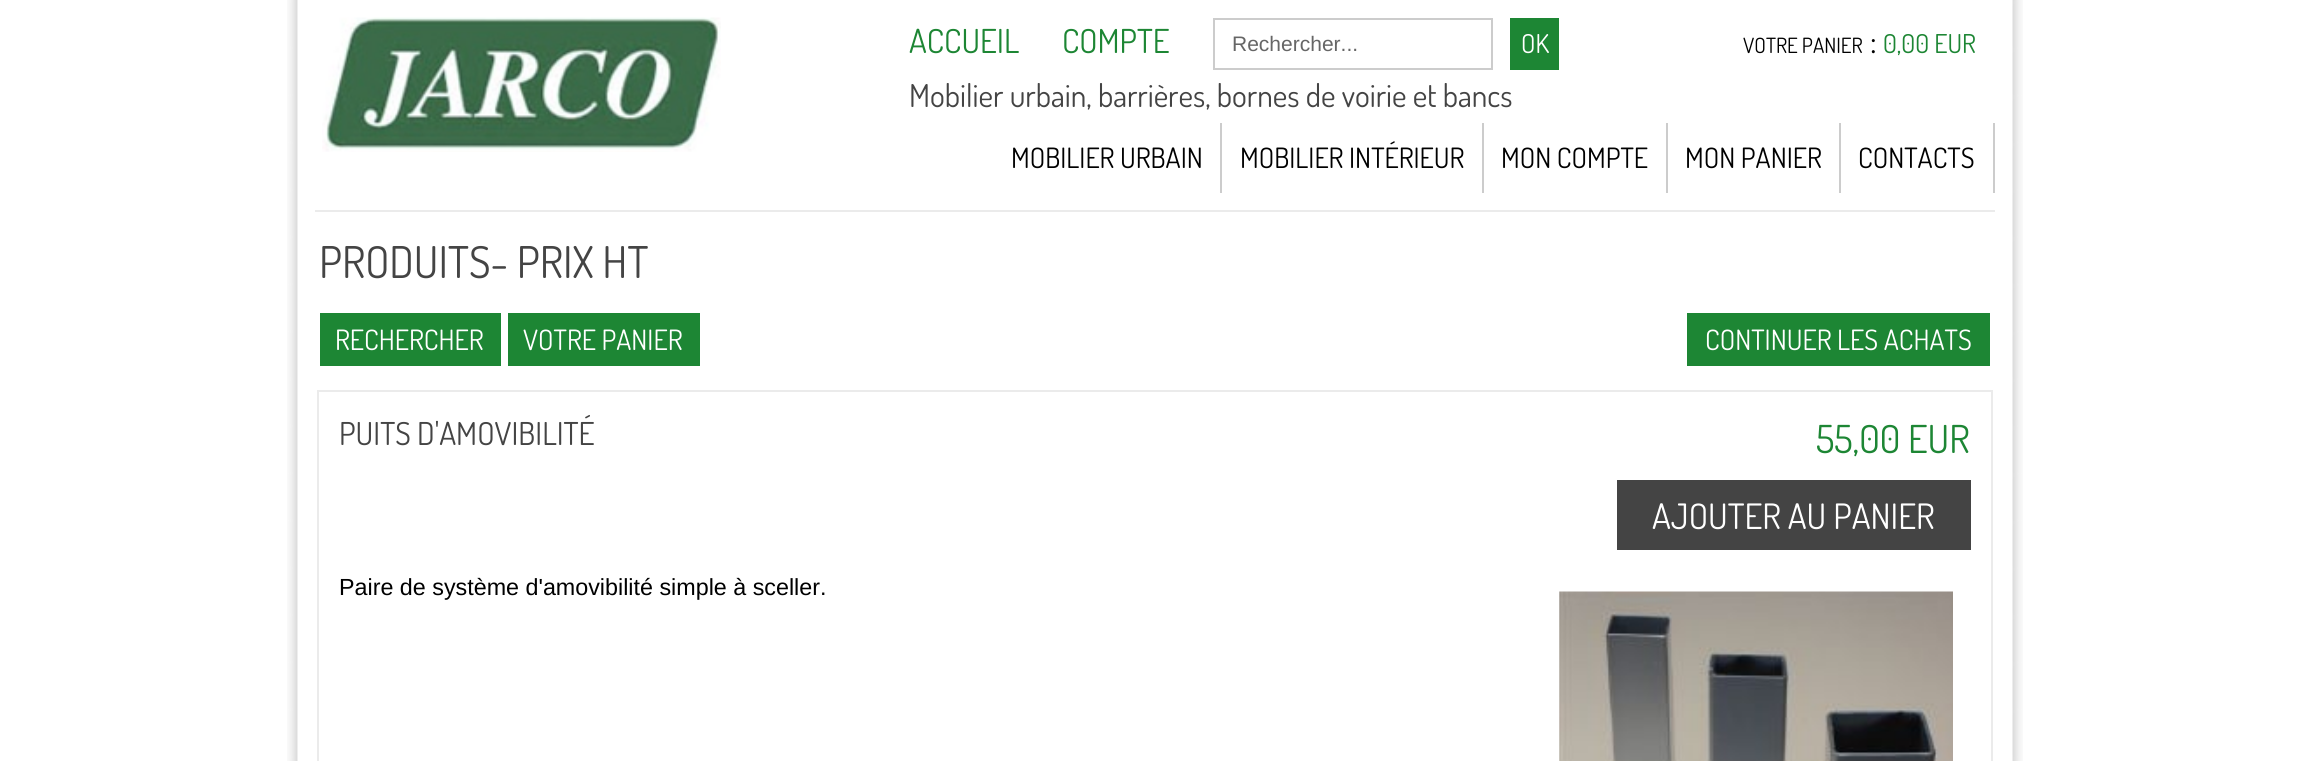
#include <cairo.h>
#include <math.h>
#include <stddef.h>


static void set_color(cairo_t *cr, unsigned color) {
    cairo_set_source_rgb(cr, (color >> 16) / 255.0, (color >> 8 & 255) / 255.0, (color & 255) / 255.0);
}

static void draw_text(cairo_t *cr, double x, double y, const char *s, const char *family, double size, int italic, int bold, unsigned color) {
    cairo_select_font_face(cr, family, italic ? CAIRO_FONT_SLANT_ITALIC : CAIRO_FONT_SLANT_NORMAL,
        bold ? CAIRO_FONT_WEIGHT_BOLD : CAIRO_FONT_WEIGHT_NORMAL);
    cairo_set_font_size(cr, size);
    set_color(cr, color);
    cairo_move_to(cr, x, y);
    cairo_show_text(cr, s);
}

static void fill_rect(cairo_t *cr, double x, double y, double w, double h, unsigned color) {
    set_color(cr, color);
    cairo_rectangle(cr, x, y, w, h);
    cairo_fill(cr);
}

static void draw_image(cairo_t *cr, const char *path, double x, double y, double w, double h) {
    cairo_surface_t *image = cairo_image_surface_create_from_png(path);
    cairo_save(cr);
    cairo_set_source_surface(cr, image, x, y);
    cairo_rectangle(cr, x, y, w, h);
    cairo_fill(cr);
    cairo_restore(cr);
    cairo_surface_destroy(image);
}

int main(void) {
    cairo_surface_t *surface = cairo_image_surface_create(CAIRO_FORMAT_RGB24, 2307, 761);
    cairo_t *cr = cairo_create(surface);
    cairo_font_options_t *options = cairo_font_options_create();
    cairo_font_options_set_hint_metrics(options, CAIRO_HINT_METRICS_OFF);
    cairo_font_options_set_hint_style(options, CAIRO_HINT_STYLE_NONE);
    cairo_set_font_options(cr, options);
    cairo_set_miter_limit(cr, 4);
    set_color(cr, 0xFFFFFF);
    cairo_paint(cr);
    draw_image(cr, "assets/img1.png", 287, 0, 1736, 761);
    fill_rect(cr, 315, 210, 1680, 2, 0xEBEBEB);
    draw_image(cr, "assets/img2.png", 322, 17, 399, 135);
    draw_text(cr, 909, 53, "ACCUEIL", "Dosis", 33, 0, 0, 0x1D8634);
    draw_text(cr, 1062, 53, "COMPTE", "Dosis", 33, 0, 0, 0x1D8634);
    cairo_rectangle(cr, 1214, 19, 278, 50);
    set_color(cr, 0xCCCCCC);
    cairo_stroke(cr);
    draw_text(cr, 1232, 51, "Rechercher...", "Liberation Sans", 21, 0, 0, 0x666666);
    fill_rect(cr, 1510, 18, 49, 52, 0x1D8634);
    draw_text(cr, 1521, 53, "OK", "Dosis", 26, 0, 0, 0xFFFFFF);
    draw_text(cr, 1743, 53, "VOTRE PANIER", "Dosis", 21, 0, 0, 0x000000);
    draw_text(cr, 1870, 53, ":", "Dosis", 33, 0, 0, 0x000000);
    draw_text(cr, 1883, 53, "0,00 EUR", "Dosis", 26, 0, 0, 0x1D8634);
    draw_text(cr, 909, 107, "Mobilier urbain, barrières, bornes de voirie et bancs", "Dosis", 31.5, 0, 0, 0x444444);
    fill_rect(cr, 1220, 123, 2, 70, 0xCCCCCC);
    draw_text(cr, 1011, 168, "MOBILIER URBAIN", "Dosis", 28, 0, 0, 0x000000);
    fill_rect(cr, 1482, 123, 2, 70, 0xCCCCCC);
    draw_text(cr, 1240, 168, "MOBILIER INTÉRIEUR", "Dosis", 28, 0, 0, 0x000000);
    fill_rect(cr, 1666, 123, 2, 70, 0xCCCCCC);
    draw_text(cr, 1501, 168, "MON COMPTE", "Dosis", 28, 0, 0, 0x000000);
    fill_rect(cr, 1839, 123, 2, 70, 0xCCCCCC);
    draw_text(cr, 1685, 168, "MON PANIER", "Dosis", 28, 0, 0, 0x000000);
    fill_rect(cr, 1993, 123, 2, 70, 0xCCCCCC);
    draw_text(cr, 1858, 168, "CONTACTS", "Dosis", 28, 0, 0, 0x000000);
    draw_text(cr, 319, 278, "PRODUITS- PRIX HT", "Dosis", 43.75, 0, 0, 0x444444);
    fill_rect(cr, 320, 313, 181, 53, 0x1D8634);
    draw_text(cr, 335, 350, "RECHERCHER", "Dosis", 28, 0, 0, 0xFFFFFF);
    fill_rect(cr, 508, 313, 192, 53, 0x1D8634);
    draw_text(cr, 523, 350, "VOTRE PANIER", "Dosis", 28, 0, 0, 0xFFFFFF);
    fill_rect(cr, 1687, 313, 303, 53, 0x1D8634);
    draw_text(cr, 1705, 350, "CONTINUER LES ACHATS", "Dosis", 28, 0, 0, 0xFFFFFF);
    cairo_rectangle(cr, 318, 391, 1674, 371);
    set_color(cr, 0xEBEBEB);
    cairo_stroke(cr);
    draw_text(cr, 339, 445, "PUITS D'AMOVIBILITÉ", "Dosis", 31.5, 0, 0, 0x444444);
    draw_text(cr, 1816, 453, "55,00 EUR", "Dosis", 38.5, 0, 0, 0x1D8634);
    fill_rect(cr, 1617, 480, 354, 70, 0x444444);
    draw_text(cr, 1652, 529, "AJOUTER AU PANIER", "Dosis", 35, 0, 0, 0xFFFFFF);
    draw_text(cr, 339, 595, "Paire de système d'amovibilité simple à sceller.", "Liberation Sans", 23.3, 0, 0, 0x000000);
    draw_image(cr, "assets/img3.png", 1559, 591, 394, 170);
    cairo_surface_write_to_png(surface, "output.png");
    cairo_font_options_destroy(options);
    cairo_destroy(cr);
    cairo_surface_destroy(surface);
    return 0;
}
